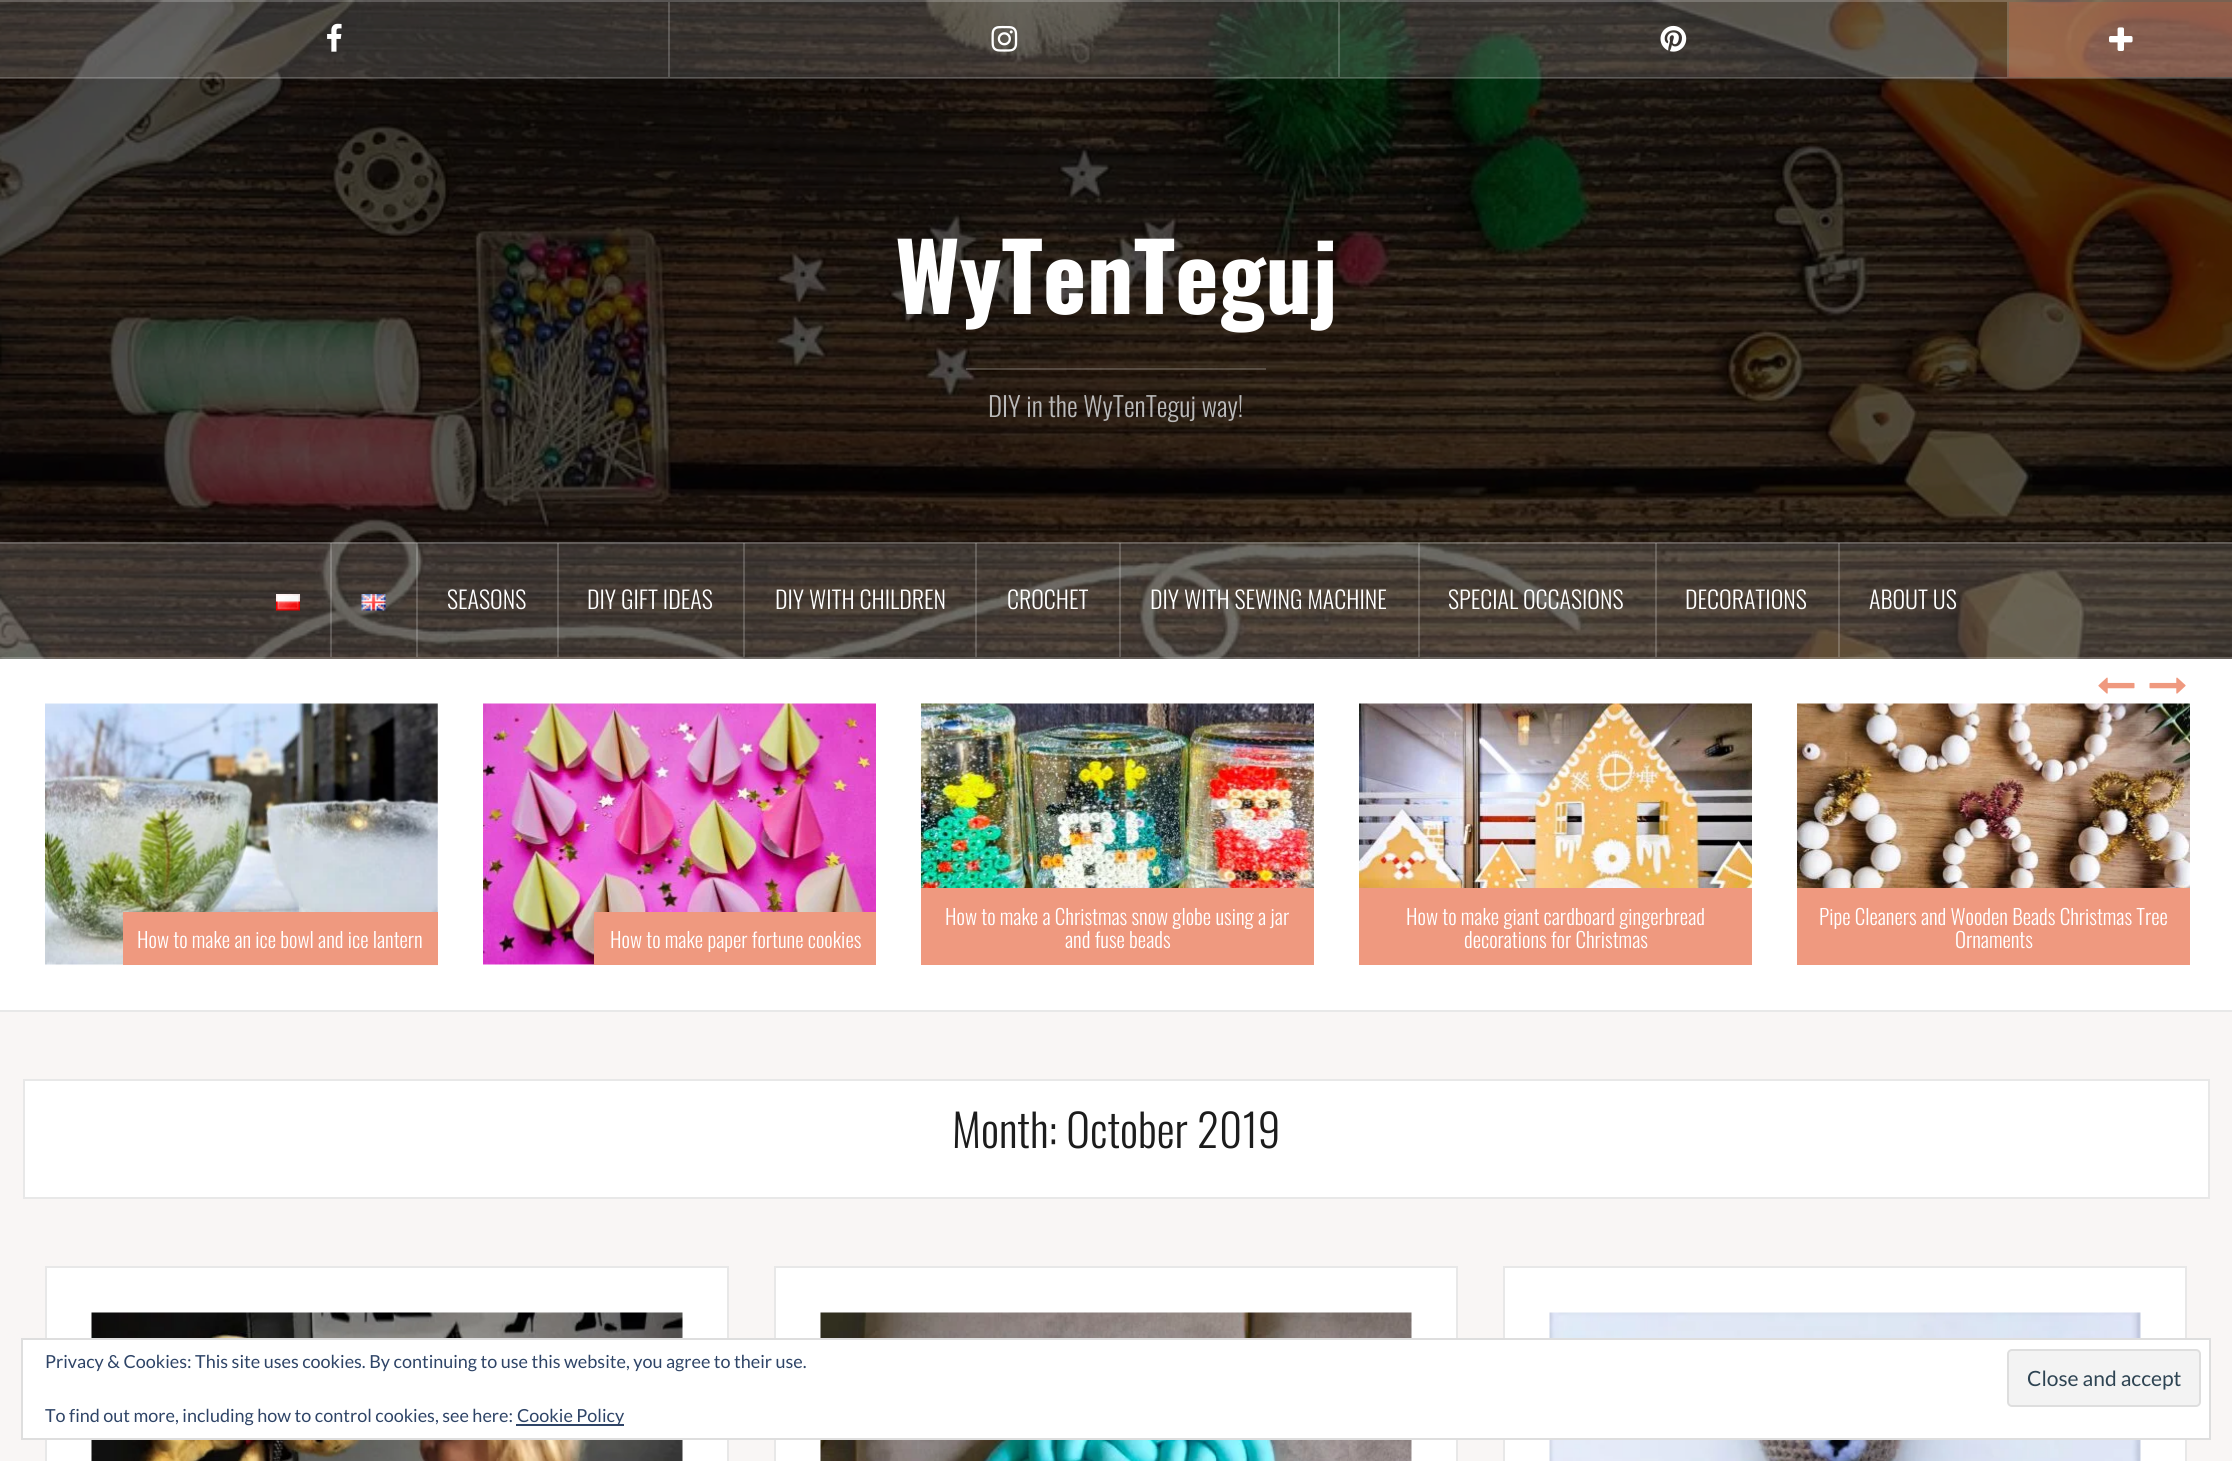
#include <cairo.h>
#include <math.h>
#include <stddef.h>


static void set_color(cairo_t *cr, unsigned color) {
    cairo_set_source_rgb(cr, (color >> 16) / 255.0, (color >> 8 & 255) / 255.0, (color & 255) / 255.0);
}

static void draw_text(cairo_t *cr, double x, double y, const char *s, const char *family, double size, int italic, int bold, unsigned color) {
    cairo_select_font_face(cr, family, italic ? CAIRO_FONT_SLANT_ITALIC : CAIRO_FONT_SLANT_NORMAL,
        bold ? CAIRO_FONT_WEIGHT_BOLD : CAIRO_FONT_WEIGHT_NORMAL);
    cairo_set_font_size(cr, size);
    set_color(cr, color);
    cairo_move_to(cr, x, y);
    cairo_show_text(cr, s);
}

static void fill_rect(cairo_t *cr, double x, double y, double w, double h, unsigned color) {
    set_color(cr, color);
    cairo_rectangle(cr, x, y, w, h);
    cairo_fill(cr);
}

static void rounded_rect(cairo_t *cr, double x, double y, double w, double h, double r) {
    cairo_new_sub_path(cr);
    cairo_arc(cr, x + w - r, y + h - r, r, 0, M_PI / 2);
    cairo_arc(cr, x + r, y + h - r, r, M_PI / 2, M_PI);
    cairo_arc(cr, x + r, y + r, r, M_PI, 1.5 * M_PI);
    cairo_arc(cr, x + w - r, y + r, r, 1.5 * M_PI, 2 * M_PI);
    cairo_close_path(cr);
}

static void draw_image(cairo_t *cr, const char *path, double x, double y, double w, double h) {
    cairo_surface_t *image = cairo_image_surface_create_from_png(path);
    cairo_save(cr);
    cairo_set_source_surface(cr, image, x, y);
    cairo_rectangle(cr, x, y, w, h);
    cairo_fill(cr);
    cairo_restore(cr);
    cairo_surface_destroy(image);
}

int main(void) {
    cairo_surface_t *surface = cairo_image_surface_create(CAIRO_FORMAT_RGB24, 2232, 1461);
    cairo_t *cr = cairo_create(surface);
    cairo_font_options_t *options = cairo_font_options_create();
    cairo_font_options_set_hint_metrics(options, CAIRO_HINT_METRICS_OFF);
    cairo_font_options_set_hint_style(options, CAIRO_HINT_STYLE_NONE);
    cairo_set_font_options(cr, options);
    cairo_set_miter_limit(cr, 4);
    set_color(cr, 0xF9F6F5);
    cairo_paint(cr);
    draw_image(cr, "assets/img1.png", 0, 0, 2232, 659);
    cairo_set_source_rgba(cr, 1, 1, 1, 0.15);
    cairo_rectangle(cr, 0, 0, 2232, 78);
    cairo_fill(cr);
    cairo_set_source_rgba(cr, 1, 1, 1, 0.2);
    cairo_rectangle(cr, 0, 0, 2232, 2);
    cairo_fill(cr);
    cairo_rectangle(cr, 0, 77, 2232, 2);
    cairo_fill(cr);
    cairo_rectangle(cr, 668, 2, 2, 75);
    cairo_fill(cr);
    draw_image(cr, "assets/img2.png", 327, 23, 15, 29);
    cairo_rectangle(cr, 1338, 2, 2, 75);
    cairo_fill(cr);
    draw_image(cr, "assets/img3.png", 991, 25, 27, 27);
    cairo_rectangle(cr, 2007, 2, 2, 75);
    cairo_fill(cr);
    draw_image(cr, "assets/img4.png", 1660, 25, 27, 27);
    cairo_set_source_rgba(cr, 0.937, 0.6, 0.498, 0.4);
    cairo_rectangle(cr, 2009, 2, 223, 75);
    cairo_fill(cr);
    draw_image(cr, "assets/img5.png", 2109, 27, 24, 24);
    draw_text(cr, 895, 314, "WyTenTeguj", "Oswald", 93, 0, 1, 0xFFFFFF);
    cairo_set_source_rgba(cr, 1, 1, 1, 0.2);
    cairo_rectangle(cr, 966, 368, 300, 2);
    cairo_fill(cr);
    draw_text(cr, 988, 417, "DIY in the WyTenTeguj way!", "Oswald Light", 27, 0, 0, 0xBBBBBB);
    cairo_set_source_rgba(cr, 1, 1, 1, 0.15);
    cairo_rectangle(cr, 0, 542, 2232, 117);
    cairo_fill(cr);
    cairo_set_source_rgba(cr, 1, 1, 1, 0.2);
    cairo_rectangle(cr, 0, 542, 2232, 2);
    cairo_fill(cr);
    cairo_rectangle(cr, 0, 657, 2232, 2);
    cairo_fill(cr);
    cairo_rectangle(cr, 330, 543, 2, 114);
    cairo_fill(cr);
    draw_image(cr, "assets/img6.png", 276, 594, 24, 17);
    cairo_rectangle(cr, 416, 543, 2, 114);
    cairo_fill(cr);
    draw_image(cr, "assets/img7.png", 361, 594, 25, 17);
    cairo_rectangle(cr, 557, 543, 2, 114);
    cairo_fill(cr);
    draw_text(cr, 447, 609, "SEASONS", "Oswald Light", 24, 0, 0, 0xFFFFFF);
    cairo_set_source_rgba(cr, 1, 1, 1, 0.2);
    cairo_rectangle(cr, 743, 543, 2, 114);
    cairo_fill(cr);
    draw_text(cr, 587, 609, "DIY GIFT IDEAS", "Oswald Light", 24, 0, 0, 0xFFFFFF);
    cairo_set_source_rgba(cr, 1, 1, 1, 0.2);
    cairo_rectangle(cr, 975, 543, 2, 114);
    cairo_fill(cr);
    draw_text(cr, 775, 609, "DIY WITH CHILDREN", "Oswald Light", 24, 0, 0, 0xFFFFFF);
    cairo_set_source_rgba(cr, 1, 1, 1, 0.2);
    cairo_rectangle(cr, 1119, 543, 2, 114);
    cairo_fill(cr);
    draw_text(cr, 1007, 609, "CROCHET", "Oswald Light", 24, 0, 0, 0xFFFFFF);
    cairo_set_source_rgba(cr, 1, 1, 1, 0.2);
    cairo_rectangle(cr, 1418, 543, 2, 114);
    cairo_fill(cr);
    draw_text(cr, 1150, 609, "DIY WITH SEWING MACHINE", "Oswald Light", 24, 0, 0, 0xFFFFFF);
    cairo_set_source_rgba(cr, 1, 1, 1, 0.2);
    cairo_rectangle(cr, 1655, 543, 2, 114);
    cairo_fill(cr);
    draw_text(cr, 1448, 609, "SPECIAL OCCASIONS", "Oswald Light", 24, 0, 0, 0xFFFFFF);
    cairo_set_source_rgba(cr, 1, 1, 1, 0.2);
    cairo_rectangle(cr, 1838, 543, 2, 114);
    cairo_fill(cr);
    draw_text(cr, 1685, 609, "DECORATIONS", "Oswald Light", 24, 0, 0, 0xFFFFFF);
    draw_text(cr, 1869, 609, "ABOUT US", "Oswald Light", 24, 0, 0, 0xFFFFFF);
    fill_rect(cr, 0, 659, 2232, 351, 0xFFFFFF);
    fill_rect(cr, 0, 1010, 2232, 2, 0xE8E8E8);
    draw_image(cr, "assets/img8.png", 2098, 677, 37, 17);
    draw_image(cr, "assets/img9.png", 2149, 677, 37, 17);
    draw_image(cr, "assets/img10.png", 45, 703, 393, 263);
    fill_rect(cr, 123, 912, 315, 53, 0xEF997F);
    draw_text(cr, 137, 948, "How to make an ice bowl and ice lantern", "Oswald Light", 21, 0, 0, 0xFFFFFF);
    draw_image(cr, "assets/img11.png", 483, 703, 393, 262);
    fill_rect(cr, 594, 912, 282, 53, 0xEF997F);
    draw_text(cr, 610, 948, "How to make paper fortune cookies", "Oswald Light", 21, 0, 0, 0xFFFFFF);
    draw_image(cr, "assets/img12.png", 921, 703, 393, 185);
    fill_rect(cr, 921, 888, 393, 77, 0xEF997F);
    draw_text(cr, 945, 925, "How to make a Christmas snow globe using a jar", "Oswald Light", 21, 0, 0, 0xFFFFFF);
    draw_text(cr, 1065, 948, "and fuse beads", "Oswald Light", 21, 0, 0, 0xFFFFFF);
    draw_image(cr, "assets/img13.png", 1359, 703, 393, 185);
    fill_rect(cr, 1359, 888, 393, 77, 0xEF997F);
    draw_text(cr, 1406, 925, "How to make giant cardboard gingerbread", "Oswald Light", 21, 0, 0, 0xFFFFFF);
    draw_text(cr, 1464, 948, "decorations for Christmas", "Oswald Light", 21, 0, 0, 0xFFFFFF);
    draw_image(cr, "assets/img14.png", 1797, 703, 393, 185);
    fill_rect(cr, 1797, 888, 393, 77, 0xEF997F);
    draw_text(cr, 1819, 925, "Pipe Cleaners and Wooden Beads Christmas Tree", "Oswald Light", 21, 0, 0, 0xFFFFFF);
    draw_text(cr, 1955, 948, "Ornaments", "Oswald Light", 21, 0, 0, 0xFFFFFF);
    cairo_rectangle(cr, 24, 1080, 2185, 118);
    cairo_fill_preserve(cr);
    set_color(cr, 0xE8E8E8);
    cairo_stroke(cr);
    draw_text(cr, 952, 1148, "Month: October 2019", "Oswald Light", 45, 0, 0, 0x1C1C1C);
    set_color(cr, 0xFFFFFF);
    cairo_rectangle(cr, 46, 1267, 682, 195);
    cairo_fill_preserve(cr);
    set_color(cr, 0xE8E8E8);
    cairo_stroke(cr);
    draw_image(cr, "assets/img15.png", 91, 1312, 592, 149);
    set_color(cr, 0xFFFFFF);
    cairo_rectangle(cr, 775, 1267, 682, 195);
    cairo_fill_preserve(cr);
    set_color(cr, 0xE8E8E8);
    cairo_stroke(cr);
    draw_image(cr, "assets/img16.png", 820, 1312, 592, 149);
    set_color(cr, 0xFFFFFF);
    cairo_rectangle(cr, 1504, 1267, 682, 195);
    cairo_fill_preserve(cr);
    set_color(cr, 0xE8E8E8);
    cairo_stroke(cr);
    draw_image(cr, "assets/img17.png", 1549, 1312, 592, 149);
    set_color(cr, 0xFFFFFF);
    cairo_rectangle(cr, 22, 1339, 2188, 100);
    cairo_fill_preserve(cr);
    set_color(cr, 0xDEDEDE);
    cairo_stroke(cr);
    draw_text(cr, 45, 1368, "Privacy & Cookies: This site uses cookies. By continuing to use this website, you agree to their use.", "Lato", 18, 0, 0, 0x2E4467);
    set_color(cr, 0xF3F3F3);
    rounded_rect(cr, 2008, 1350, 192, 56, 4);
    cairo_fill_preserve(cr);
    set_color(cr, 0xDEDEDE);
    cairo_stroke(cr);
    draw_text(cr, 2027, 1386, "Close and accept", "Lato", 21, 0, 0, 0x2E4453);
    draw_text(cr, 45, 1422, "To find out more, including how to control cookies, see here:", "Lato", 18, 0, 0, 0x2E4467);
    fill_rect(cr, 516, 1424, 108, 2, 0x2E4467);
    draw_text(cr, 517, 1422, "Cookie Policy", "Lato", 18, 0, 0, 0x2E4467);
    cairo_surface_write_to_png(surface, "output.png");
    cairo_font_options_destroy(options);
    cairo_destroy(cr);
    cairo_surface_destroy(surface);
    return 0;
}
